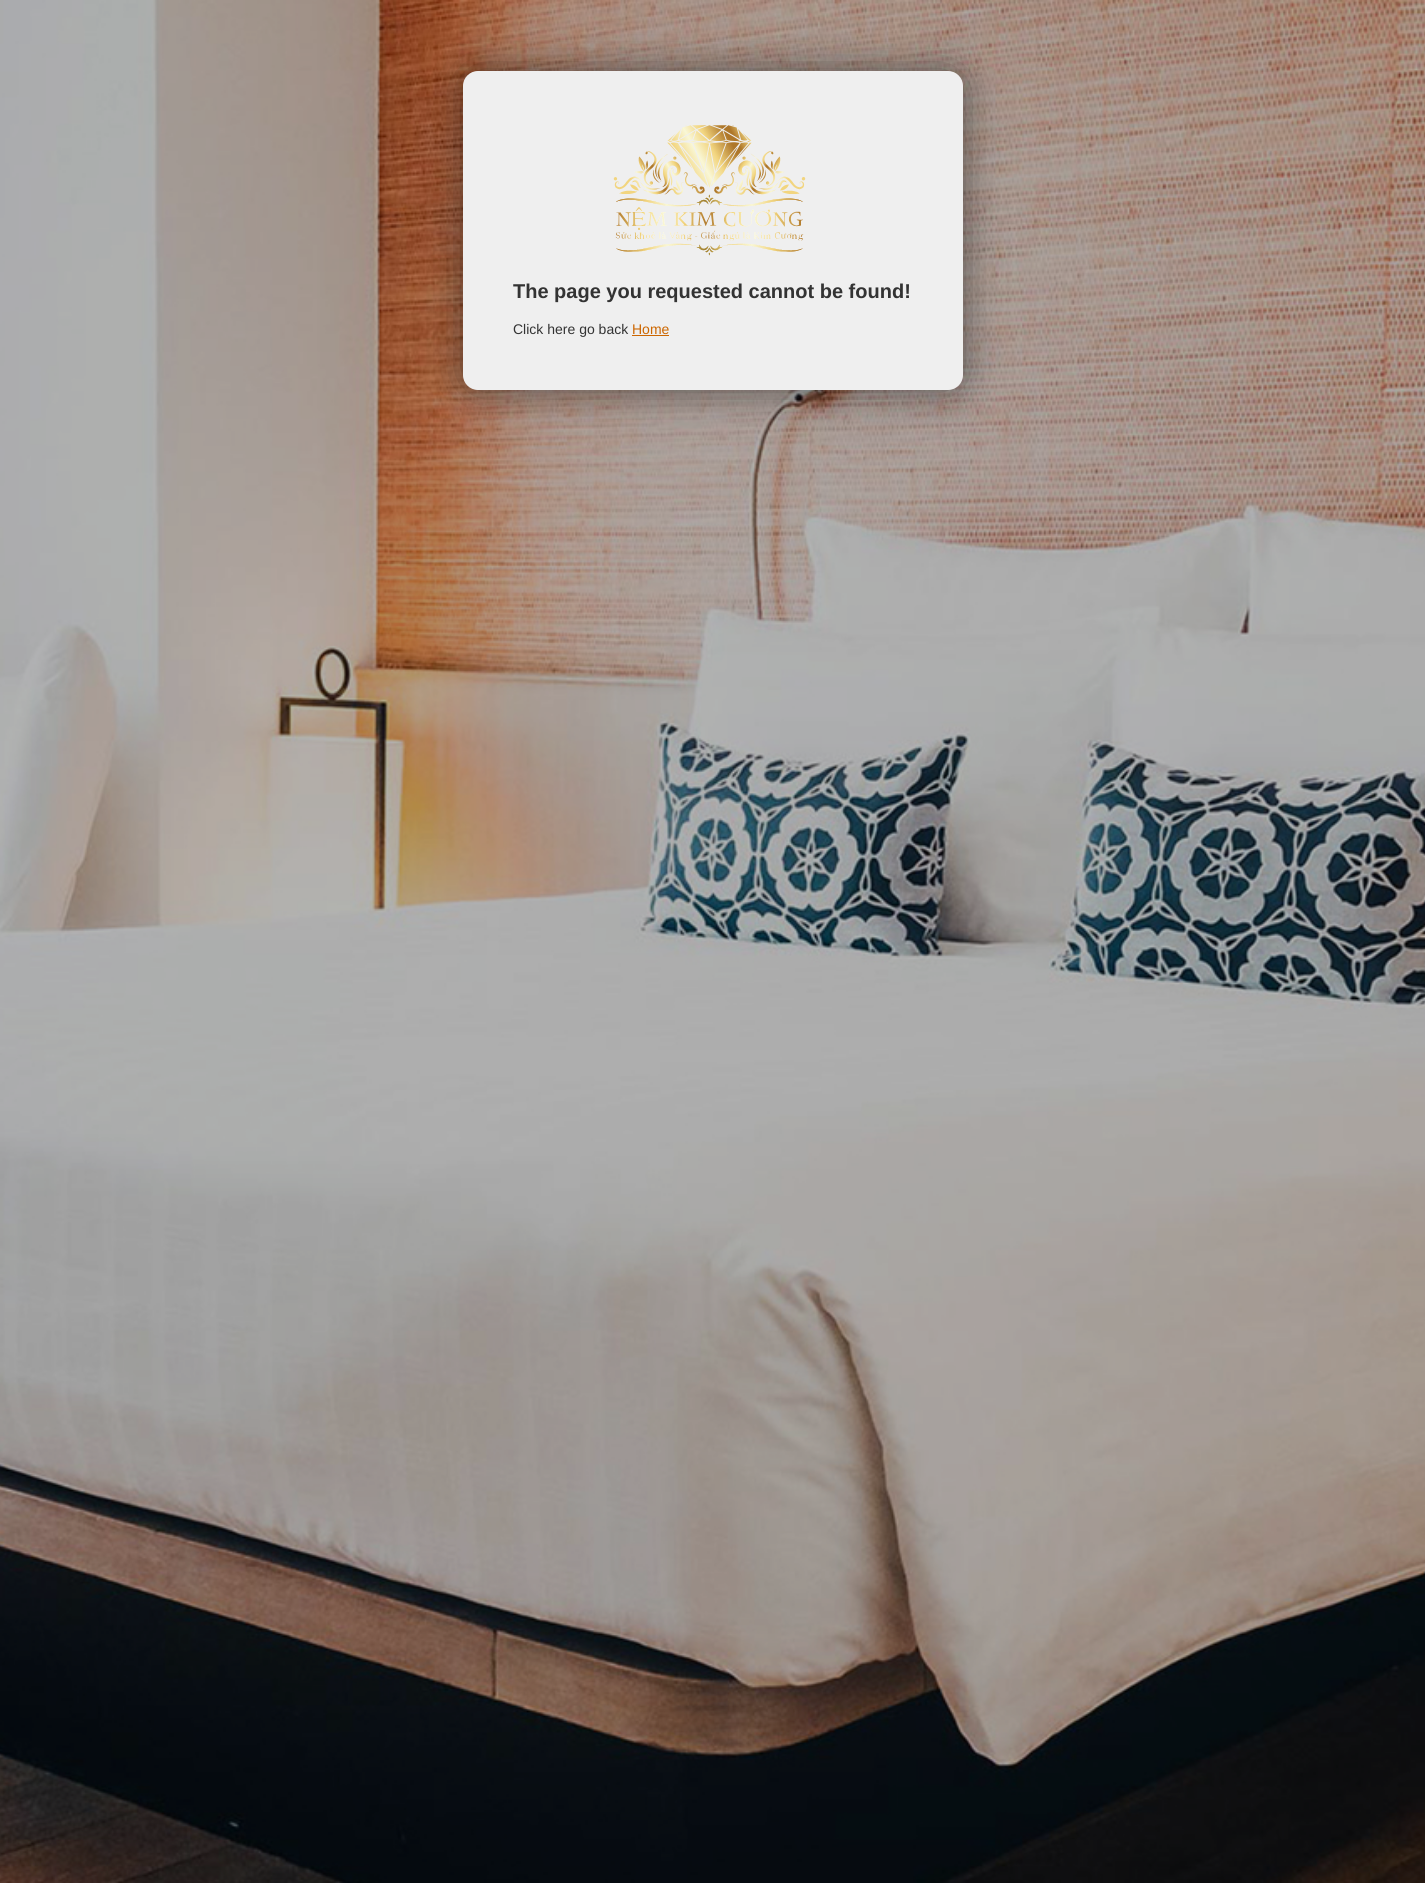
#include <cairo.h>
#include <math.h>
#include <stddef.h>


static void set_color(cairo_t *cr, unsigned color) {
    cairo_set_source_rgb(cr, (color >> 16) / 255.0, (color >> 8 & 255) / 255.0, (color & 255) / 255.0);
}

static void draw_text(cairo_t *cr, double x, double y, const char *s, const char *family, double size, int italic, int bold, unsigned color) {
    cairo_select_font_face(cr, family, italic ? CAIRO_FONT_SLANT_ITALIC : CAIRO_FONT_SLANT_NORMAL,
        bold ? CAIRO_FONT_WEIGHT_BOLD : CAIRO_FONT_WEIGHT_NORMAL);
    cairo_set_font_size(cr, size);
    set_color(cr, color);
    cairo_move_to(cr, x, y);
    cairo_show_text(cr, s);
}

static void fill_rect(cairo_t *cr, double x, double y, double w, double h, unsigned color) {
    set_color(cr, color);
    cairo_rectangle(cr, x, y, w, h);
    cairo_fill(cr);
}

static void rounded_rect(cairo_t *cr, double x, double y, double w, double h, double r) {
    cairo_new_sub_path(cr);
    cairo_arc(cr, x + w - r, y + h - r, r, 0, M_PI / 2);
    cairo_arc(cr, x + r, y + h - r, r, M_PI / 2, M_PI);
    cairo_arc(cr, x + r, y + r, r, M_PI, 1.5 * M_PI);
    cairo_arc(cr, x + w - r, y + r, r, 1.5 * M_PI, 2 * M_PI);
    cairo_close_path(cr);
}

static void draw_shadow(cairo_t *cr, double x, double y, double w, double h, double r, double blur, double alpha) {
    cairo_push_group_with_content(cr, CAIRO_CONTENT_ALPHA);
    cairo_set_operator(cr, CAIRO_OPERATOR_SOURCE);
    for (int i = 15; i >= -15 && fmin(w, h) + blur * i / 3 > 0; i -= 2) {
        double e = blur * i / 6;
        cairo_set_source_rgba(cr, 0, 0, 0, alpha * erfc((i - 1) / 8.5) / 2);
        rounded_rect(cr, x - e, y - e, w + 2 * e, h + 2 * e, fmax(0, fmin(r + e + blur * .6, fmin(w, h) / 2 + e)));
        cairo_fill(cr);
    }
    cairo_pattern_t *soft = cairo_pop_group(cr);
    cairo_mask(cr, soft);
    cairo_pattern_destroy(soft);
}

static void draw_image(cairo_t *cr, const char *path, double x, double y, double w, double h) {
    cairo_surface_t *image = cairo_image_surface_create_from_png(path);
    cairo_save(cr);
    cairo_set_source_surface(cr, image, x, y);
    cairo_rectangle(cr, x, y, w, h);
    cairo_fill(cr);
    cairo_restore(cr);
    cairo_surface_destroy(image);
}

int main(void) {
    cairo_surface_t *surface = cairo_image_surface_create(CAIRO_FORMAT_RGB24, 1425, 1883);
    cairo_t *cr = cairo_create(surface);
    cairo_font_options_t *options = cairo_font_options_create();
    cairo_font_options_set_hint_metrics(options, CAIRO_HINT_METRICS_OFF);
    cairo_font_options_set_hint_style(options, CAIRO_HINT_STYLE_NONE);
    cairo_set_font_options(cr, options);
    cairo_set_miter_limit(cr, 4);
    set_color(cr, 0xFFFFFF);
    cairo_paint(cr);
    draw_image(cr, "assets/img1.png", 0, 0, 1425, 1883);
    set_color(cr, 0x000000);
    draw_shadow(cr, 463, 71, 500, 319, 15, 20, 0.5);
    set_color(cr, 0xEFEFEF);
    rounded_rect(cr, 463, 71, 500, 319, 15);
    cairo_fill(cr);
    draw_image(cr, "assets/img2.png", 613, 125, 193, 131);
    draw_text(cr, 513, 298, "The page you requested cannot be found!", "Liberation Sans", 20, 0, 1, 0x333333);
    draw_text(cr, 513, 334, "Click here go back", "Liberation Sans", 14, 0, 0, 0x333333);
    draw_text(cr, 632, 334, "Home", "Liberation Sans", 14, 0, 0, 0xCC6600);
    fill_rect(cr, 632, 335, 37, 1, 0xCC6600);
    cairo_surface_write_to_png(surface, "output.png");
    cairo_font_options_destroy(options);
    cairo_destroy(cr);
    cairo_surface_destroy(surface);
    return 0;
}
